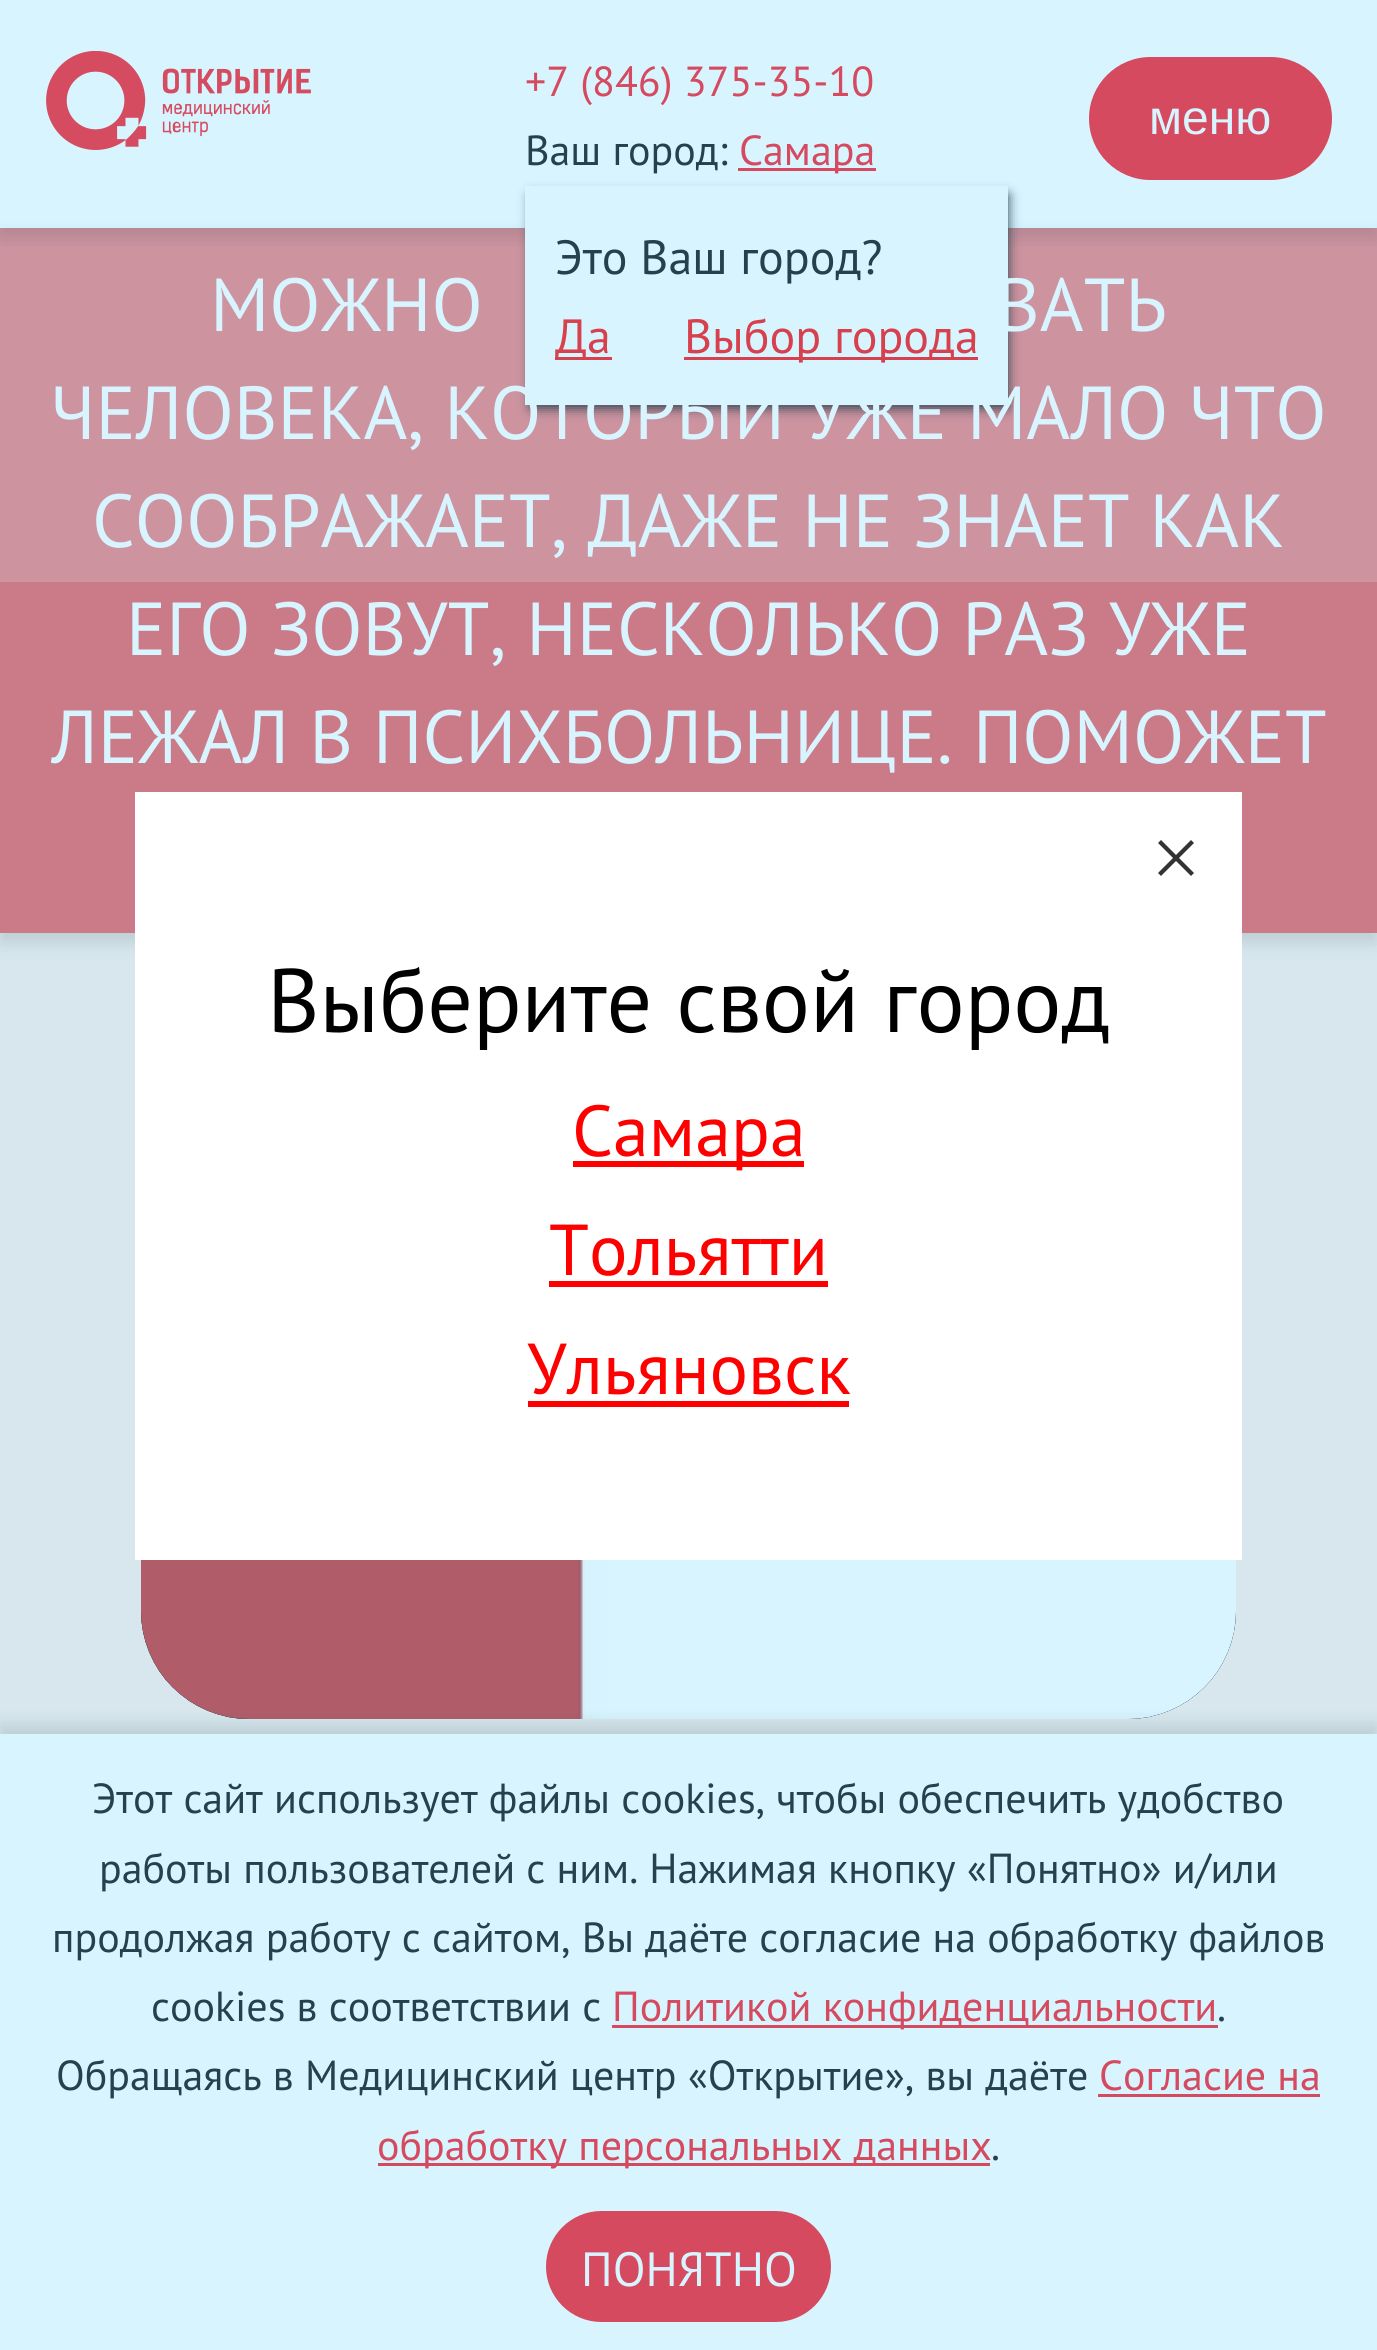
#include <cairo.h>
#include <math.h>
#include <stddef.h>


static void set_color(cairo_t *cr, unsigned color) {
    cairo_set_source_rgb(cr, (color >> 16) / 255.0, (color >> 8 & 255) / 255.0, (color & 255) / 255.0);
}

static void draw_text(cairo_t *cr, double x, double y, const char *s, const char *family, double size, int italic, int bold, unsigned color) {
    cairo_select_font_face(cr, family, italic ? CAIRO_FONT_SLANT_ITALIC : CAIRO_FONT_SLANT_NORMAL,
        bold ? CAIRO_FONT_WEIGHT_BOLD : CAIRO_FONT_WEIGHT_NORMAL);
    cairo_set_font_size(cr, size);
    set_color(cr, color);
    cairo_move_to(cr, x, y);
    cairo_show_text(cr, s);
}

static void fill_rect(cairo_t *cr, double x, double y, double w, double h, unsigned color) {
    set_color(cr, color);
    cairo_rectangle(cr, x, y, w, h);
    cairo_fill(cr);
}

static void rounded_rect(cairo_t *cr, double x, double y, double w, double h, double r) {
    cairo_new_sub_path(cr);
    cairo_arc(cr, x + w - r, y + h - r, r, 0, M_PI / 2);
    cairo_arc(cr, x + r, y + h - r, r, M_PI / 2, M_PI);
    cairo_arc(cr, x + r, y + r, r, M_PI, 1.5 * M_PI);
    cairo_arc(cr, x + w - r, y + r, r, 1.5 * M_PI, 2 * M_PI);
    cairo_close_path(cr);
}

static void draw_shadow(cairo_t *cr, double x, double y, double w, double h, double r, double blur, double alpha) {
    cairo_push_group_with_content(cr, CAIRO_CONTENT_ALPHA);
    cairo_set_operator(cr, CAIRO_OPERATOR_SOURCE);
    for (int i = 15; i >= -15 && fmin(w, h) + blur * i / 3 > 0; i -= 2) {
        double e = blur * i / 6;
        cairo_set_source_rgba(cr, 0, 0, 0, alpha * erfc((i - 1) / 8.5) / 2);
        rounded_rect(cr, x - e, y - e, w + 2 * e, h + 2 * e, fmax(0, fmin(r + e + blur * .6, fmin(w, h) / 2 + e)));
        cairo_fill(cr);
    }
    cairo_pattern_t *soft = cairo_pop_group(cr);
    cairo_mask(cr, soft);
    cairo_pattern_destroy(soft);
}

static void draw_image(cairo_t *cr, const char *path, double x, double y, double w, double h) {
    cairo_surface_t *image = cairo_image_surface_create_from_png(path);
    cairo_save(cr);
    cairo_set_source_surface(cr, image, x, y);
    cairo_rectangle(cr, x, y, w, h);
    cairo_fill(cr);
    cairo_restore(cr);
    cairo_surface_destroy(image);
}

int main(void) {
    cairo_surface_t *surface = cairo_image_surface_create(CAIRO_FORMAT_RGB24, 1377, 2350);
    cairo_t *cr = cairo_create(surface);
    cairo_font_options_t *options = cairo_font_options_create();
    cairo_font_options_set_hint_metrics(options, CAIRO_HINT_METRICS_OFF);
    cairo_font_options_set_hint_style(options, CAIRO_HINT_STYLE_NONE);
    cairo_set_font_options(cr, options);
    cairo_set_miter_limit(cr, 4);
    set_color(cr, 0xD7F4FF);
    cairo_paint(cr);
    fill_rect(cr, 0, 228, 1377, 354, 0xCD939F);
    cairo_save(cr);
    cairo_rectangle(cr, 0, 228, 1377, 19);
    cairo_clip(cr);
    set_color(cr, 0x24414D);
    draw_shadow(cr, 0, 9, 1377, 228, 0, 9, 0.16);
    cairo_restore(cr);
    draw_image(cr, "assets/img1.png", 46, 51, 265, 99);
    draw_text(cr, 525, 96, "+7 (846) 375-35-10", "PT Sans", 42, 0, 0, 0xD54A5F);
    draw_text(cr, 525, 165, "Ваш город:", "PT Sans", 42, 0, 0, 0x24414D);
    fill_rect(cr, 738, 168, 138, 3, 0xD54A5F);
    draw_text(cr, 739, 165, "Самара", "PT Sans", 42, 0, 0, 0xD54A5F);
    set_color(cr, 0x24414D);
    draw_shadow(cr, 531, 195, 477, 213, 0, 6, 1);
    fill_rect(cr, 0, 582, 1377, 351, 0xCB7B88);
    fill_rect(cr, 0, 933, 1377, 801, 0xD7E7ED);
    cairo_save(cr);
    cairo_set_fill_rule(cr, CAIRO_FILL_RULE_EVEN_ODD);
    cairo_new_path(cr);
    cairo_move_to(cr, 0, 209);
    cairo_line_to(cr, 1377, 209);
    cairo_line_to(cr, 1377, 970);
    cairo_line_to(cr, 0, 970);
    cairo_close_path(cr);
    cairo_move_to(cr, 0, 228);
    cairo_line_to(cr, 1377, 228);
    cairo_line_to(cr, 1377, 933);
    cairo_line_to(cr, 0, 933);
    cairo_close_path(cr);
    cairo_clip(cr);
    set_color(cr, 0x24414D);
    draw_shadow(cr, 0, 237, 1377, 705, 0, 9, 0.16);
    cairo_restore(cr);
    fill_rect(cr, 525, 186, 483, 219, 0xD7F4FF);
    draw_text(cr, 555, 274, "Это Ваш город?", "PT Sans", 48, 0, 0, 0x24414D);
    fill_rect(cr, 555, 357, 57, 3, 0xD7414D);
    draw_text(cr, 555, 353, "Да", "PT Sans", 48, 0, 0, 0xD7414D);
    fill_rect(cr, 684, 357, 294, 3, 0xD7414D);
    draw_text(cr, 684, 353, "Выбор города", "PT Sans", 48, 0, 0, 0xD7414D);
    set_color(cr, 0xD54A5F);
    rounded_rect(cr, 1089, 57, 243, 123, 61.5);
    cairo_fill(cr);
    draw_text(cr, 1149, 134, "меню", "Liberation Sans", 48, 0, 0, 0xD7F4FF);
    draw_text(cr, 210, 331, "МОЖНО", "PT Sans", 75, 0, 0, 0xD7F4FF);
    draw_text(cr, 996, 331, "ВАТЬ", "PT Sans", 75, 0, 0, 0xD7F4FF);
    draw_text(cr, 50, 439, "ЧЕЛОВЕКА, КОТОРЫЙ УЖЕ МАЛО ЧТО", "PT Sans", 75, 0, 0, 0xD7F4FF);
    draw_text(cr, 92, 547, "СООБРАЖАЕТ, ДАЖЕ НЕ ЗНАЕТ КАК", "PT Sans", 75, 0, 0, 0xD7F4FF);
    draw_text(cr, 126, 655, "ЕГО ЗОВУТ, НЕСКОЛЬКО РАЗ УЖЕ", "PT Sans", 75, 0, 0, 0xD7F4FF);
    draw_text(cr, 51, 763, "ЛЕЖАЛ В ПСИХБОЛЬНИЦЕ. ПОМОЖЕТ", "PT Sans", 75, 0, 0, 0xD7F4FF);
    draw_image(cr, "assets/img2.png", 141, 1560, 1095, 159);
    fill_rect(cr, 135, 792, 1107, 768, 0xFFFFFF);
    set_color(cr, 0x333333);
    cairo_new_path(cr);
    cairo_move_to(cr, 1179, 858);
    cairo_line_to(cr, 1194, 843);
    cairo_line_to(cr, 1191, 840);
    cairo_line_to(cr, 1176, 855);
    cairo_line_to(cr, 1161, 840);
    cairo_line_to(cr, 1158, 843);
    cairo_line_to(cr, 1173, 858);
    cairo_line_to(cr, 1158, 873);
    cairo_line_to(cr, 1161, 876);
    cairo_line_to(cr, 1176, 861);
    cairo_line_to(cr, 1191, 876);
    cairo_line_to(cr, 1194, 873);
    cairo_close_path(cr);
    cairo_fill(cr);
    draw_text(cr, 267, 1032, "Выберите свой город", "PT Sans", 90, 0, 0, 0x000000);
    fill_rect(cr, 573, 1161, 231, 6, 0xFF0000);
    draw_text(cr, 572, 1156, "Самара", "PT Sans", 72, 0, 0, 0xFF0000);
    draw_text(cr, 549, 1275, "Тольятти", "PT Sans", 72, 0, 0, 0xFF0000);
    fill_rect(cr, 549, 1281, 279, 6, 0xFF0000);
    draw_text(cr, 527, 1394, "Ульяновск", "PT Sans", 72, 0, 0, 0xFF0000);
    fill_rect(cr, 528, 1401, 321, 6, 0xFF0000);
    set_color(cr, 0x24414D);
    draw_shadow(cr, 0, 1725, 1377, 618, 0, 9, 0.16);
    fill_rect(cr, 0, 1734, 1377, 616, 0xD7F4FF);
    draw_text(cr, 92, 1813, "Этот сайт использует файлы cookies, чтобы обеспечить удобство", "PT Sans", 42, 0, 0, 0x24414D);
    draw_text(cr, 99, 1883, "работы пользователей с ним. Нажимая кнопку «Понятно» и/или", "PT Sans", 42, 0, 0, 0x24414D);
    draw_text(cr, 52, 1952, "продолжая работу с сайтом, Вы даёте согласие на обработку файлов", "PT Sans", 42, 0, 0, 0x24414D);
    draw_text(cr, 151, 2021, "cookies в соответствии с", "PT Sans", 42, 0, 0, 0x24414D);
    fill_rect(cr, 612, 2025, 606, 3, 0xD54A5F);
    draw_text(cr, 612, 2021, "Политикой конфиденциальности", "PT Sans", 42, 0, 0, 0xD54A5F);
    draw_text(cr, 1217, 2021, ".", "PT Sans", 42, 0, 0, 0x24414D);
    draw_text(cr, 56, 2090, "Обращаясь в Медицинский центр «Открытие», вы даёте", "PT Sans", 42, 0, 0, 0x24414D);
    draw_text(cr, 1099, 2090, "Согласие на", "PT Sans", 42, 0, 0, 0xD54A5F);
    fill_rect(cr, 1098, 2094, 222, 3, 0xD54A5F);
    fill_rect(cr, 378, 2163, 612, 3, 0xD54A5F);
    draw_text(cr, 377, 2160, "обработку персональных данных", "PT Sans", 42, 0, 0, 0xD54A5F);
    draw_text(cr, 991, 2160, ".", "PT Sans", 42, 0, 0, 0x24414D);
    set_color(cr, 0xD54A5F);
    rounded_rect(cr, 546, 2211, 285, 111, 55.5);
    cairo_fill(cr);
    draw_text(cr, 581, 2286, "ПОНЯТНО", "PT Sans", 48, 0, 0, 0xD7F4FF);
    cairo_surface_write_to_png(surface, "output.png");
    cairo_font_options_destroy(options);
    cairo_destroy(cr);
    cairo_surface_destroy(surface);
    return 0;
}
